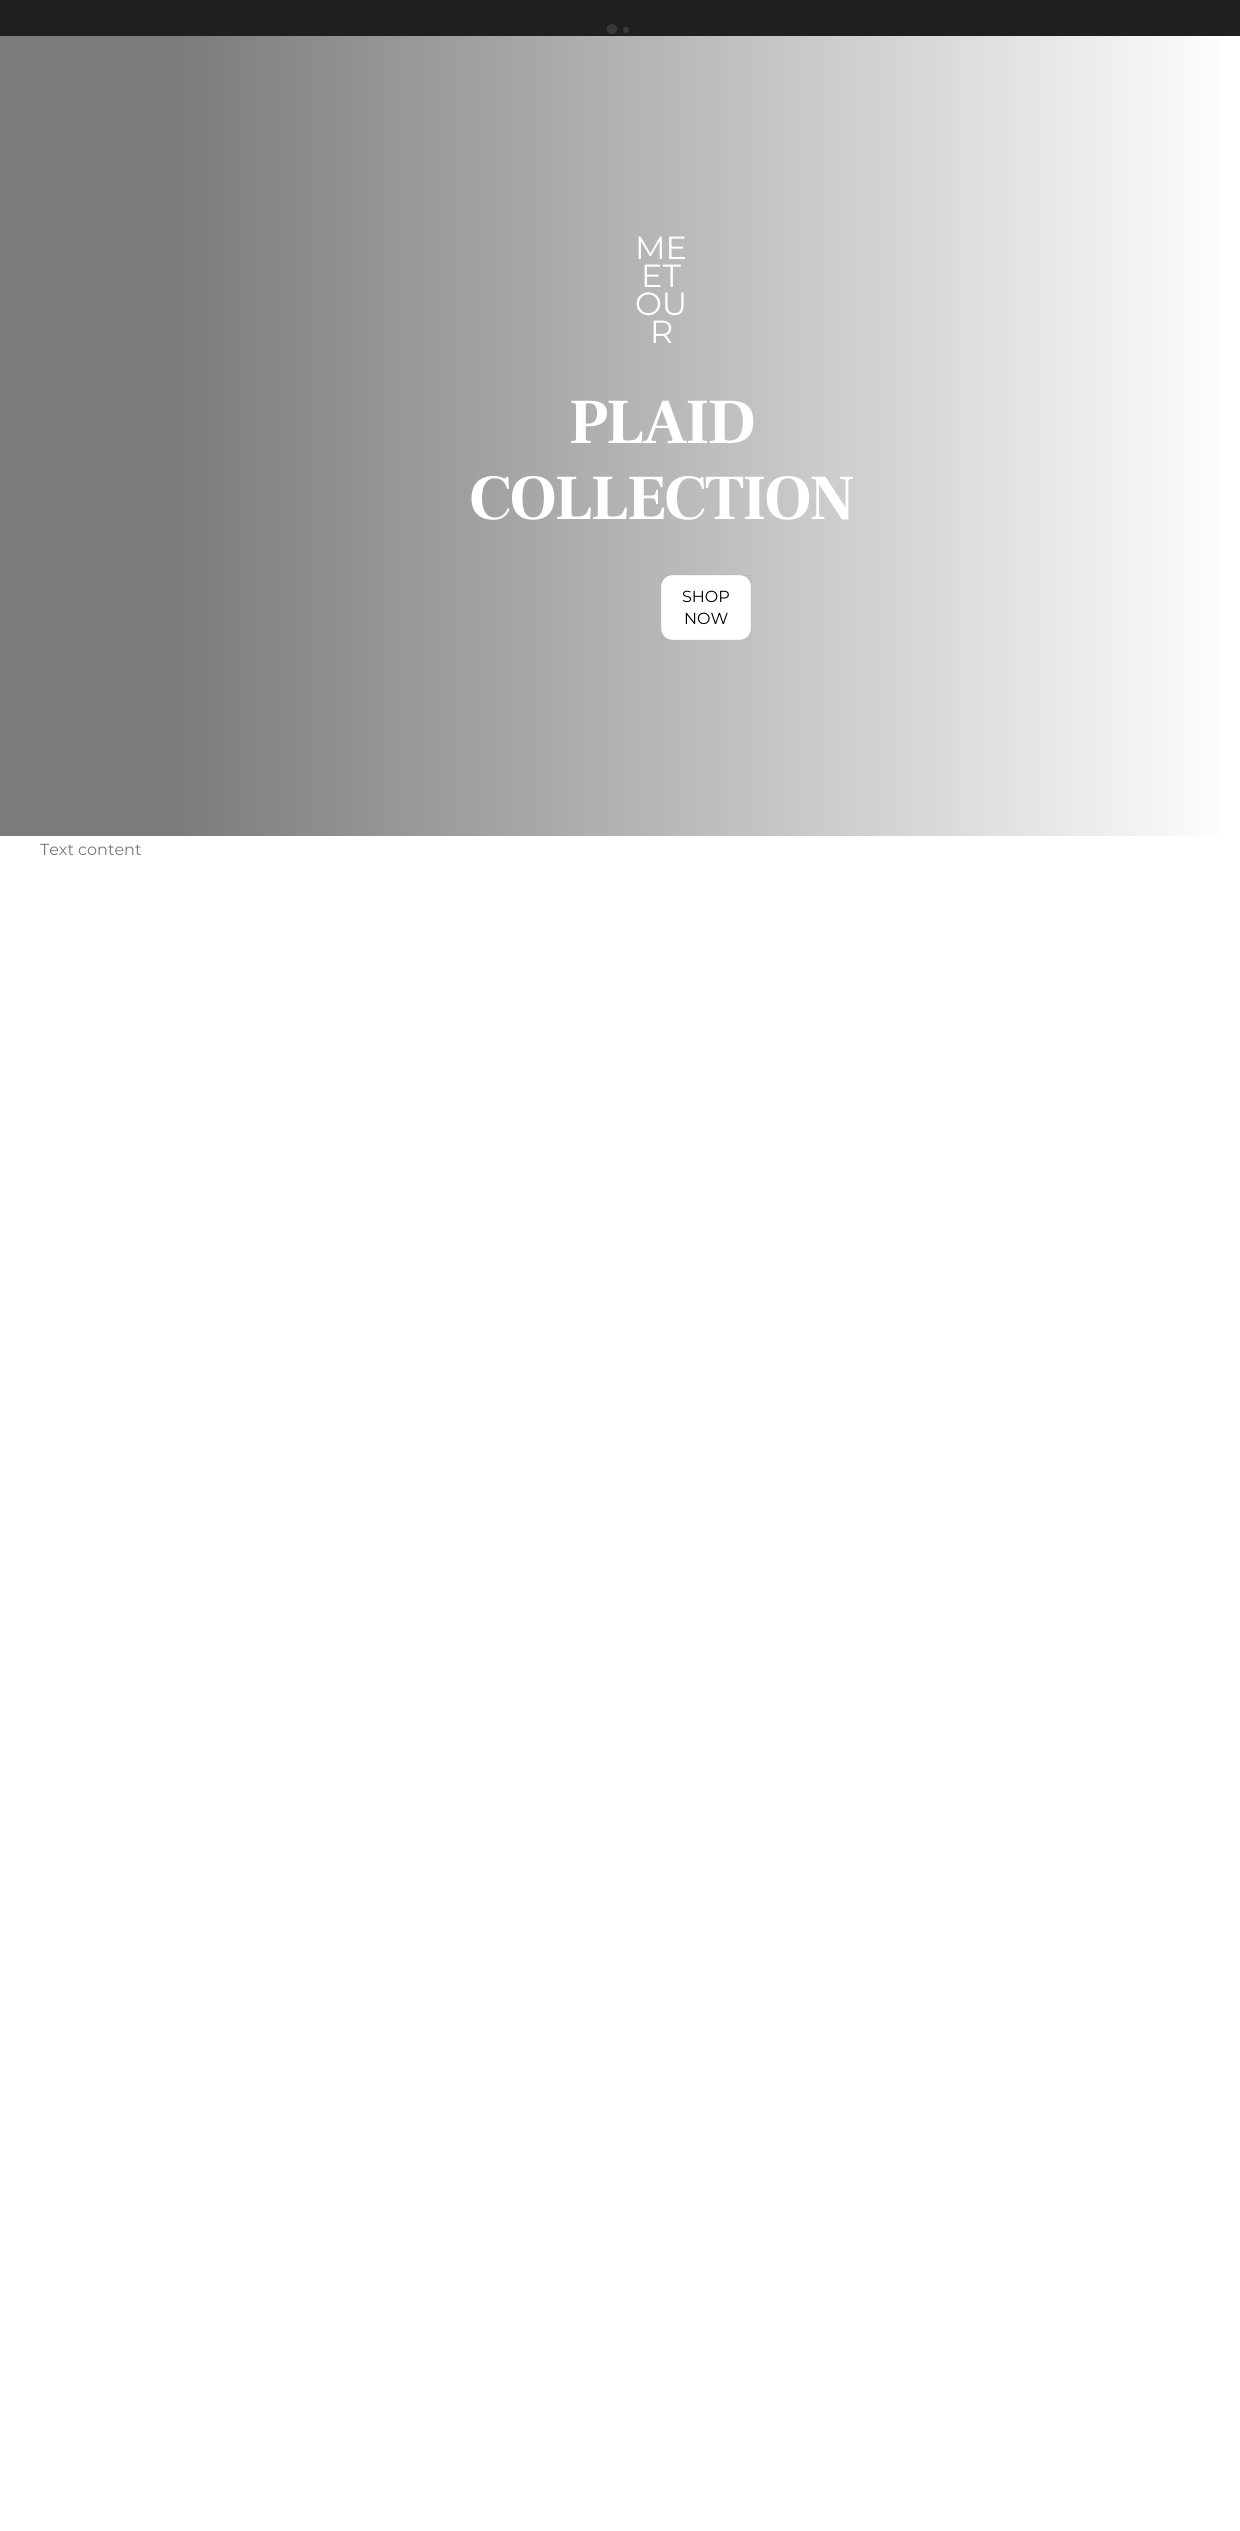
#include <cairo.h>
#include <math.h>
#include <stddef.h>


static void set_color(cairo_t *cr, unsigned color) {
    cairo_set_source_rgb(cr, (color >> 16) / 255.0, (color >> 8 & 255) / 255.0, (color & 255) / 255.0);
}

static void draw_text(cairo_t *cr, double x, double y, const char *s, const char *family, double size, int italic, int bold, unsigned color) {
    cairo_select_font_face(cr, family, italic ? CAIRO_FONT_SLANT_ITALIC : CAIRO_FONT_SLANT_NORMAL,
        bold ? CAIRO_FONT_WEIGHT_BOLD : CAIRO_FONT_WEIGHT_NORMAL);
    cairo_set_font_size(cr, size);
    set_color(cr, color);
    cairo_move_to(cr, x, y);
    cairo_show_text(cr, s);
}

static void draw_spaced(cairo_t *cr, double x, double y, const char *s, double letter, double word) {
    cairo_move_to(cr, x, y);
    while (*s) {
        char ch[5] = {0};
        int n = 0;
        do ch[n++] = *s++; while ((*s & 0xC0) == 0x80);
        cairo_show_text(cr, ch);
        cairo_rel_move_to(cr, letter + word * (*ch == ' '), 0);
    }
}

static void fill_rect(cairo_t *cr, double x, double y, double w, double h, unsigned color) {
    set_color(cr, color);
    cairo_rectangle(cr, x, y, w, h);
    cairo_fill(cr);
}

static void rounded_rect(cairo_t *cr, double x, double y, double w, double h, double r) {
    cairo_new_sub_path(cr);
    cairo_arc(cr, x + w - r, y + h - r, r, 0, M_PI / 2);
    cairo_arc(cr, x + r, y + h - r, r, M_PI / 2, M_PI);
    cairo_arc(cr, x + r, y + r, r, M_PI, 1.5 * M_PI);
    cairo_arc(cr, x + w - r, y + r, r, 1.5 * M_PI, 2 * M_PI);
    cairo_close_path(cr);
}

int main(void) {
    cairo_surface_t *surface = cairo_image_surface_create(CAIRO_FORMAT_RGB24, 1240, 2531);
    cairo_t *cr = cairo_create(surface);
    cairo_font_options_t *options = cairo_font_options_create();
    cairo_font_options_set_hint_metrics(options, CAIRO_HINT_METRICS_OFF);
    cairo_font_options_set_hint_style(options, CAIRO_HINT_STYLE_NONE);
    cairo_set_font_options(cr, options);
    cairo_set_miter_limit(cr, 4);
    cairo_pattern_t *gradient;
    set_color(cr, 0xFFFFFF);
    cairo_paint(cr);
    fill_rect(cr, 0, 0, 1240, 36, 0x1F1F1F);
    set_color(cr, 0x393939);
    cairo_arc(cr, 612, 29, 5, 0, 2 * M_PI);
    cairo_fill(cr);
    cairo_arc(cr, 626, 30, 3, 0, 2 * M_PI);
    cairo_fill(cr);
    gradient = cairo_pattern_create_linear(0, 436, 1240, 436);
    cairo_pattern_add_color_stop_rgba(gradient, 0.14, 0.482, 0.482, 0.482, 1);
    cairo_pattern_add_color_stop_rgba(gradient, 1, 1, 1, 1, 1);
    cairo_set_source(cr, gradient);
    cairo_pattern_destroy(gradient);
    cairo_rectangle(cr, 0, 36, 1220, 800);
    cairo_fill(cr);
    draw_text(cr, 635, 259, "ME", "Montserrat", 32, 0, 0, 0xFFFFFF);
    draw_text(cr, 641, 287, "ET", "Montserrat", 32, 0, 0, 0xFFFFFF);
    draw_text(cr, 635, 315, "OU", "Montserrat", 32, 0, 0, 0xFFFFFF);
    draw_text(cr, 650, 343, "R", "Montserrat", 32, 0, 0, 0xFFFFFF);
    cairo_select_font_face(cr, "Frank Ruhl Libre", CAIRO_FONT_SLANT_NORMAL, CAIRO_FONT_WEIGHT_BOLD);
    cairo_set_font_size(cr, 64);
    draw_spaced(cr, 569, 443, "PLAID", -2, 0);
    draw_spaced(cr, 469, 519, "COLLECTION", -2, 0);
    rounded_rect(cr, 661, 575, 90, 65, 12);
    cairo_fill(cr);
    cairo_rectangle(cr, 661.5, 575.5, 89, 64);
    cairo_set_source_rgba(cr, 0, 0, 0, 0.05);
    cairo_set_line_width(cr, 1);
    cairo_stroke(cr);
    draw_text(cr, 682, 602, "SHOP", "Montserrat", 16, 0, 0, 0x000000);
    draw_text(cr, 684, 624, "NOW", "Montserrat", 16, 0, 0, 0x000000);
    draw_text(cr, 40, 855, "Text content", "Montserrat", 16, 0, 0, 0x777777);
    cairo_surface_write_to_png(surface, "output.png");
    cairo_font_options_destroy(options);
    cairo_destroy(cr);
    cairo_surface_destroy(surface);
    return 0;
}
